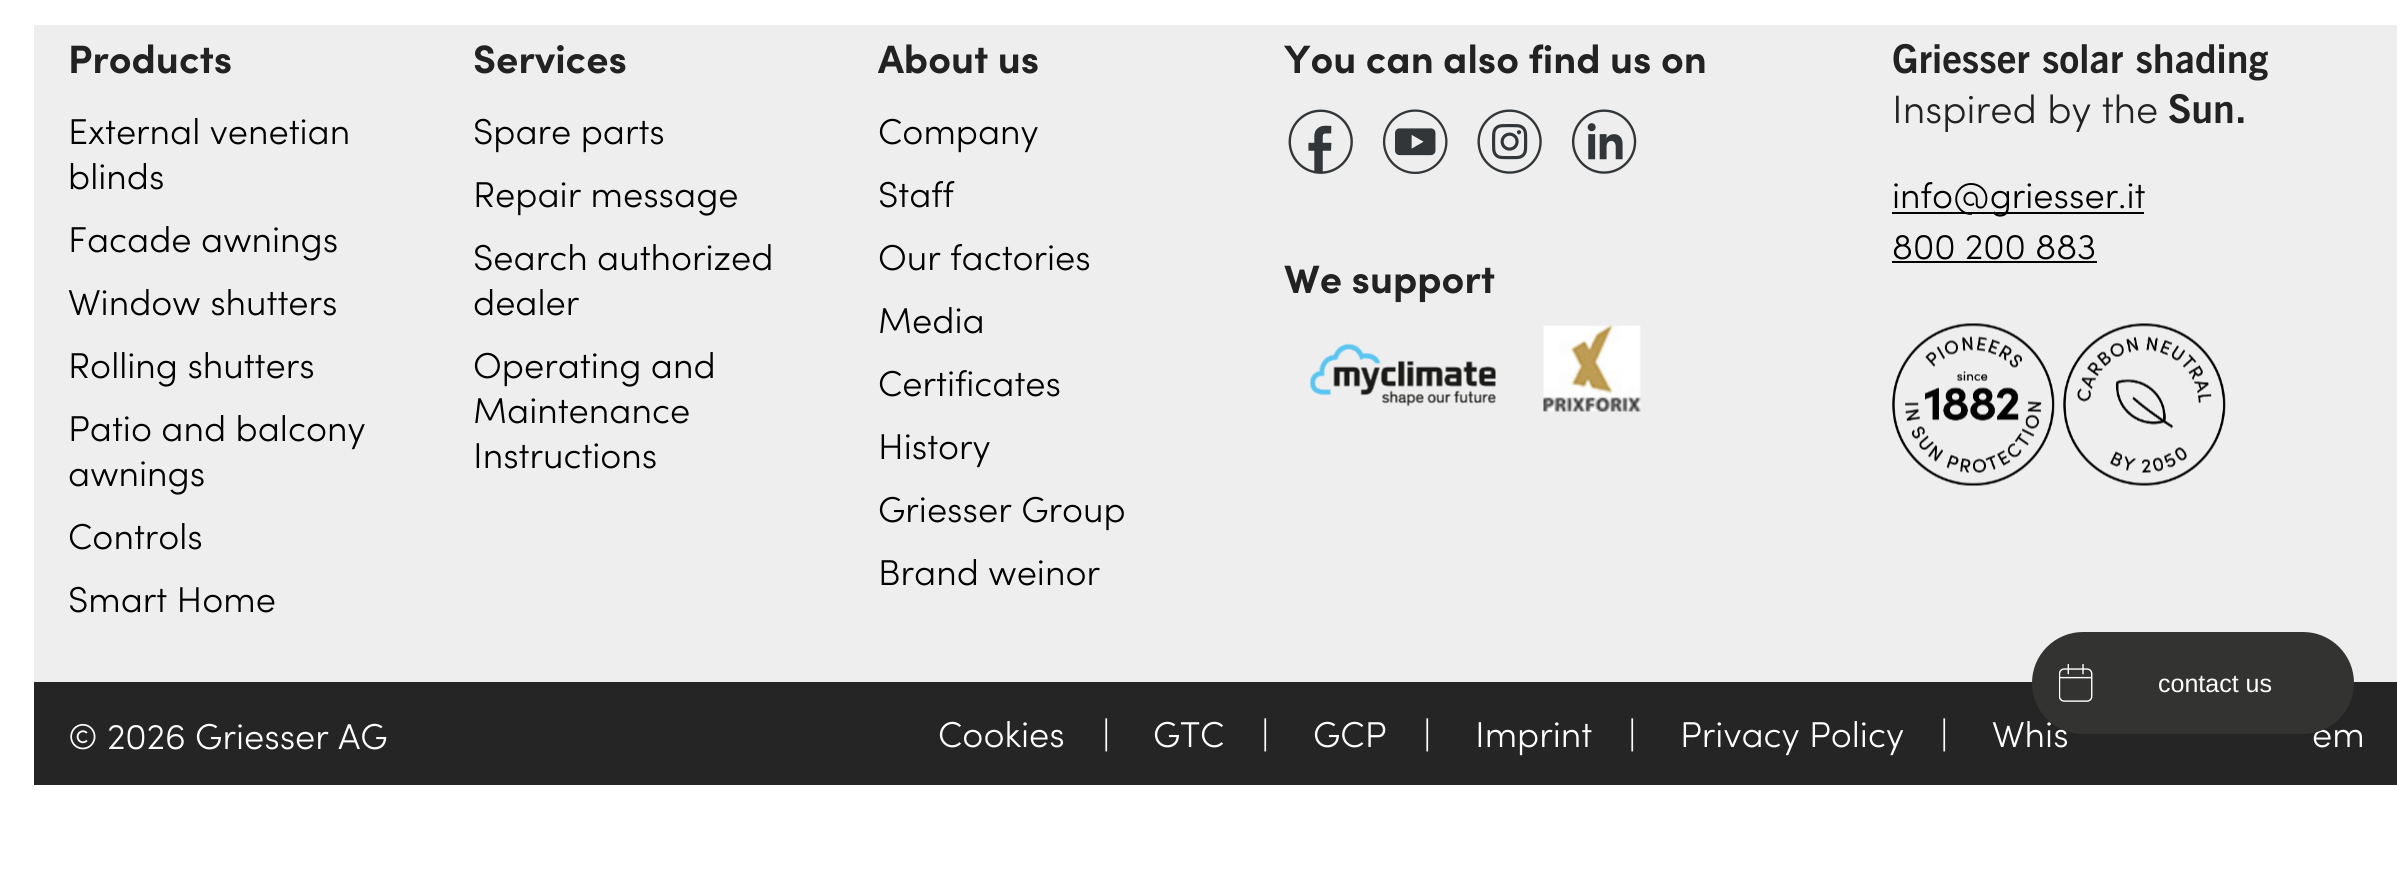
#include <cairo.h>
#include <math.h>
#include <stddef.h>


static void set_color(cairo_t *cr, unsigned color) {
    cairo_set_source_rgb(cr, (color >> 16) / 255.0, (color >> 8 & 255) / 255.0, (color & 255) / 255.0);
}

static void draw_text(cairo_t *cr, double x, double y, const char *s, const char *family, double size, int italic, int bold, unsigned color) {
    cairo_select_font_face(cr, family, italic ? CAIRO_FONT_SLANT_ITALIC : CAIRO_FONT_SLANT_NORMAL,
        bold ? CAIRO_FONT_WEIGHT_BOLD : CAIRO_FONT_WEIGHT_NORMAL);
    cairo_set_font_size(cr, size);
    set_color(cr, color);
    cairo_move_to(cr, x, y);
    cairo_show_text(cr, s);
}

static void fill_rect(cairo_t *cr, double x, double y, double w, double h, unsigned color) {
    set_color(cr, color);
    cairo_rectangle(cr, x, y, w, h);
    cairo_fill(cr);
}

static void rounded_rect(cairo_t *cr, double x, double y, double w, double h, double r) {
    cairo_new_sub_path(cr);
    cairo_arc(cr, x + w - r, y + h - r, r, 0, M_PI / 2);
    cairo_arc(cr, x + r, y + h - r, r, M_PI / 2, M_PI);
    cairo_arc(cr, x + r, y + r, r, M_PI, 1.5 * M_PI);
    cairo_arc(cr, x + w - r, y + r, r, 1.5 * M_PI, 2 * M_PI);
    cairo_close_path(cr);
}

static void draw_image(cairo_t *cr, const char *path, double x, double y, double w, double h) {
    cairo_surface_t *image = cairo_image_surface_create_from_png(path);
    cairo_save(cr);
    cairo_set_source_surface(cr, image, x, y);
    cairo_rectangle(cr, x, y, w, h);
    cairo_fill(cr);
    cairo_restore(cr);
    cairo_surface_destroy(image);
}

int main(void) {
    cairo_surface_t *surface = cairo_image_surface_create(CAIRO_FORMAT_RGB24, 2397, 889);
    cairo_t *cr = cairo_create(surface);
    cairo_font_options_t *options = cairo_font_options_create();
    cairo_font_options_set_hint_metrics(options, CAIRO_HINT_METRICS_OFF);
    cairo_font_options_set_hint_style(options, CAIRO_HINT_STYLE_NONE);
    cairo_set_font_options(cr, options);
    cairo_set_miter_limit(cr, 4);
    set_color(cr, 0xFFFFFF);
    cairo_paint(cr);
    fill_rect(cr, 34, 25, 2363, 657, 0xEEEEEE);
    draw_text(cr, 68, 73, "Products", "Sofia", 39.6, 0, 1, 0x222222);
    draw_text(cr, 68, 144, "External venetian", "Sofia Light", 36, 0, 0, 0x000000);
    draw_text(cr, 68, 189, "blinds", "Sofia Light", 36, 0, 0, 0x000000);
    draw_text(cr, 68, 252, "Facade awnings", "Sofia Light", 36, 0, 0, 0x000000);
    draw_text(cr, 68, 315, "Window shutters", "Sofia Light", 36, 0, 0, 0x000000);
    draw_text(cr, 68, 378, "Rolling shutters", "Sofia Light", 36, 0, 0, 0x000000);
    draw_text(cr, 68, 441, "Patio and balcony", "Sofia Light", 36, 0, 0, 0x000000);
    draw_text(cr, 68, 486, "awnings", "Sofia Light", 36, 0, 0, 0x000000);
    draw_text(cr, 68, 549, "Controls", "Sofia Light", 36, 0, 0, 0x000000);
    draw_text(cr, 68, 612, "Smart Home", "Sofia Light", 36, 0, 0, 0x000000);
    draw_text(cr, 473, 73, "Services", "Sofia", 39.6, 0, 1, 0x222222);
    draw_text(cr, 473, 144, "Spare parts", "Sofia Light", 36, 0, 0, 0x000000);
    draw_text(cr, 473, 207, "Repair message", "Sofia Light", 36, 0, 0, 0x000000);
    draw_text(cr, 473, 270, "Search authorized", "Sofia Light", 36, 0, 0, 0x000000);
    draw_text(cr, 473, 315, "dealer", "Sofia Light", 36, 0, 0, 0x000000);
    draw_text(cr, 473, 378, "Operating and", "Sofia Light", 36, 0, 0, 0x000000);
    draw_text(cr, 473, 423, "Maintenance", "Sofia Light", 36, 0, 0, 0x000000);
    draw_text(cr, 473, 468, "Instructions", "Sofia Light", 36, 0, 0, 0x000000);
    draw_text(cr, 878, 73, "About us", "Sofia", 39.6, 0, 1, 0x222222);
    draw_text(cr, 878, 144, "Company", "Sofia Light", 36, 0, 0, 0x000000);
    draw_text(cr, 878, 207, "Staff", "Sofia Light", 36, 0, 0, 0x000000);
    draw_text(cr, 878, 270, "Our factories", "Sofia Light", 36, 0, 0, 0x000000);
    draw_text(cr, 878, 333, "Media", "Sofia Light", 36, 0, 0, 0x000000);
    draw_text(cr, 878, 396, "Certificates", "Sofia Light", 36, 0, 0, 0x000000);
    draw_text(cr, 878, 459, "History", "Sofia Light", 36, 0, 0, 0x000000);
    draw_text(cr, 878, 522, "Griesser Group", "Sofia Light", 36, 0, 0, 0x000000);
    draw_text(cr, 878, 585, "Brand weinor", "Sofia Light", 36, 0, 0, 0x000000);
    draw_text(cr, 1284, 73, "You can also find us on", "Sofia", 39.6, 0, 1, 0x222222);
    draw_image(cr, "assets/img1.png", 1288, 109, 65, 65);
    draw_image(cr, "assets/img2.png", 1382, 109, 66, 65);
    draw_image(cr, "assets/img3.png", 1477, 109, 65, 65);
    draw_image(cr, "assets/img4.png", 1571, 109, 66, 65);
    draw_text(cr, 1284, 293, "We support", "Sofia", 39.6, 0, 1, 0x222222);
    draw_image(cr, "assets/img5.png", 1309, 343, 187, 64);
    draw_image(cr, "assets/img6.png", 1543, 325, 98, 87);
    draw_text(cr, 1892, 73, "Griesser solar shading", "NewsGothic", 39.6, 0, 0, 0x222222);
    draw_text(cr, 1892, 123, "Inspired by the", "Sofia Light", 39.6, 0, 0, 0x222222);
    draw_text(cr, 2168, 123, "Sun.", "NewsGothic", 39.6, 0, 0, 0x222222);
    fill_rect(cr, 1892, 212, 252, 2, 0x000000);
    draw_text(cr, 1892, 208, "info@griesser.it", "Sofia Light", 36, 0, 0, 0x000000);
    draw_text(cr, 1892, 259, "800 200 883", "Sofia Light", 36, 0, 0, 0x000000);
    fill_rect(cr, 1892, 261, 205, 2, 0x000000);
    draw_image(cr, "assets/img7.png", 1892, 323, 163, 163);
    draw_image(cr, "assets/img8.png", 2063, 323, 163, 163);
    fill_rect(cr, 34, 682, 2363, 103, 0x252525);
    draw_text(cr, 68, 749, "© 2026 Griesser AG", "Sofia Light", 36, 0, 0, 0xFFFFFF);
    draw_text(cr, 938, 747, "Cookies", "Sofia Light", 36, 0, 0, 0xFFFFFF);
    draw_text(cr, 1102, 747, "|", "Sofia Light", 36, 0, 0, 0xFFFFFF);
    draw_text(cr, 1153, 747, "GTC", "Sofia Light", 36, 0, 0, 0xFFFFFF);
    draw_text(cr, 1261, 747, "|", "Sofia Light", 36, 0, 0, 0xFFFFFF);
    draw_text(cr, 1313, 747, "GCP", "Sofia Light", 36, 0, 0, 0xFFFFFF);
    draw_text(cr, 1423, 747, "|", "Sofia Light", 36, 0, 0, 0xFFFFFF);
    draw_text(cr, 1475, 747, "Imprint", "Sofia Light", 36, 0, 0, 0xFFFFFF);
    draw_text(cr, 1628, 747, "|", "Sofia Light", 36, 0, 0, 0xFFFFFF);
    draw_text(cr, 1680, 747, "Privacy Policy", "Sofia Light", 36, 0, 0, 0xFFFFFF);
    draw_text(cr, 1940, 747, "|", "Sofia Light", 36, 0, 0, 0xFFFFFF);
    draw_text(cr, 1992, 747, "Whis", "Sofia Light", 36, 0, 0, 0xFFFFFF);
    draw_text(cr, 2312, 747, "em", "Sofia Light", 36, 0, 0, 0xFFFFFF);
    set_color(cr, 0x333332);
    rounded_rect(cr, 2032, 632, 322, 102, 51);
    cairo_fill(cr);
    draw_image(cr, "assets/img9.png", 2059, 664, 34, 38);
    draw_text(cr, 2158, 692, "contact us", "Liberation Sans", 25, 0, 0, 0xFFFFFF);
    cairo_surface_write_to_png(surface, "output.png");
    cairo_font_options_destroy(options);
    cairo_destroy(cr);
    cairo_surface_destroy(surface);
    return 0;
}
